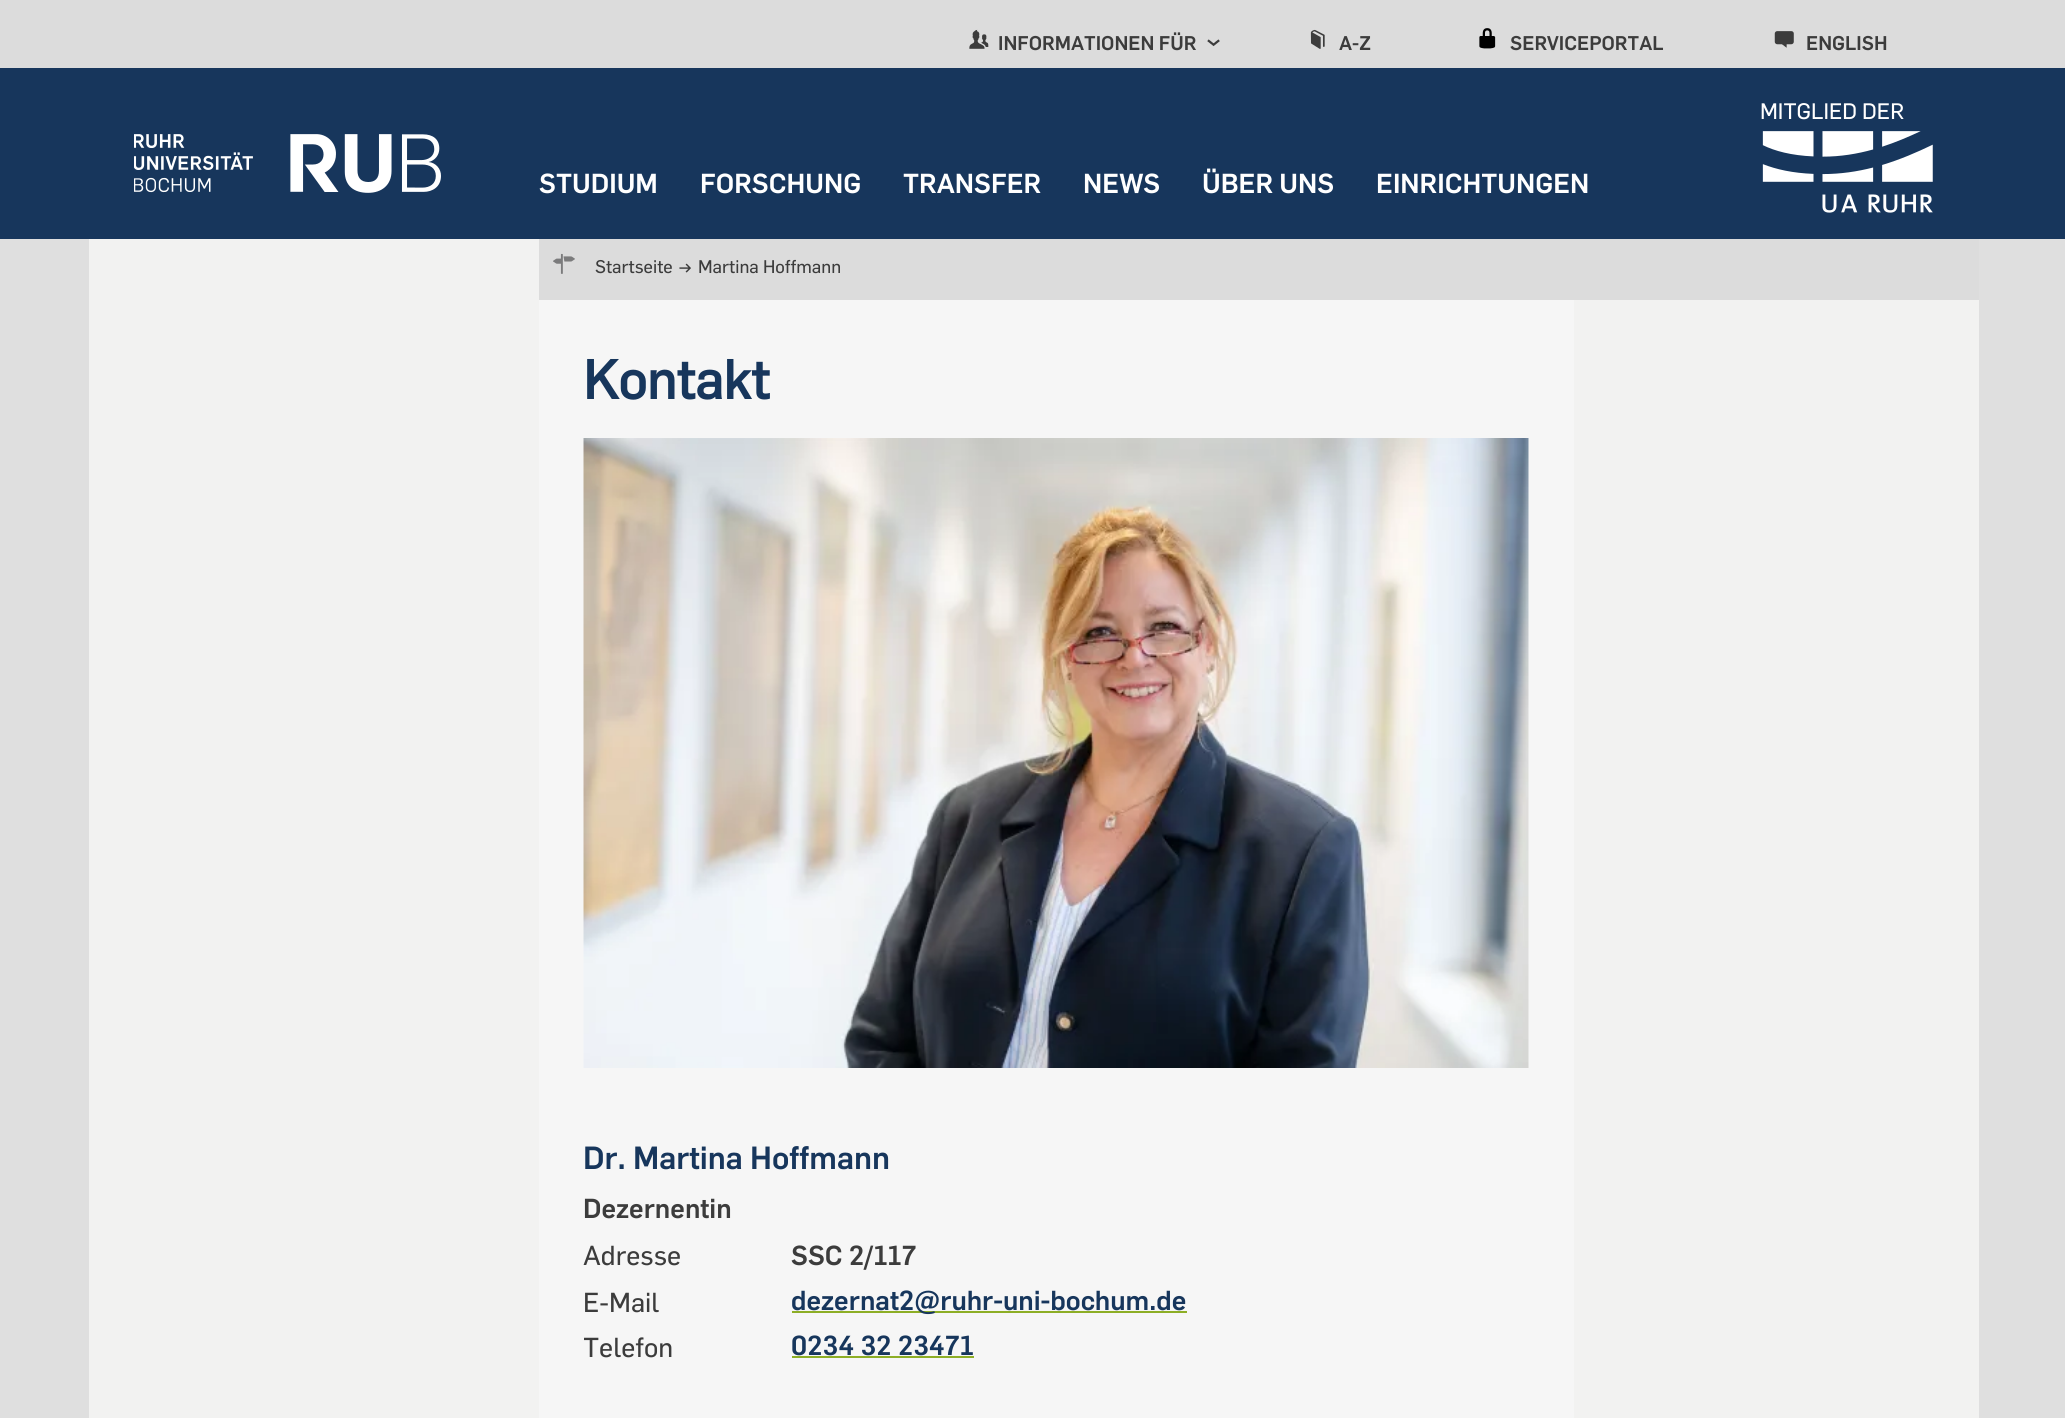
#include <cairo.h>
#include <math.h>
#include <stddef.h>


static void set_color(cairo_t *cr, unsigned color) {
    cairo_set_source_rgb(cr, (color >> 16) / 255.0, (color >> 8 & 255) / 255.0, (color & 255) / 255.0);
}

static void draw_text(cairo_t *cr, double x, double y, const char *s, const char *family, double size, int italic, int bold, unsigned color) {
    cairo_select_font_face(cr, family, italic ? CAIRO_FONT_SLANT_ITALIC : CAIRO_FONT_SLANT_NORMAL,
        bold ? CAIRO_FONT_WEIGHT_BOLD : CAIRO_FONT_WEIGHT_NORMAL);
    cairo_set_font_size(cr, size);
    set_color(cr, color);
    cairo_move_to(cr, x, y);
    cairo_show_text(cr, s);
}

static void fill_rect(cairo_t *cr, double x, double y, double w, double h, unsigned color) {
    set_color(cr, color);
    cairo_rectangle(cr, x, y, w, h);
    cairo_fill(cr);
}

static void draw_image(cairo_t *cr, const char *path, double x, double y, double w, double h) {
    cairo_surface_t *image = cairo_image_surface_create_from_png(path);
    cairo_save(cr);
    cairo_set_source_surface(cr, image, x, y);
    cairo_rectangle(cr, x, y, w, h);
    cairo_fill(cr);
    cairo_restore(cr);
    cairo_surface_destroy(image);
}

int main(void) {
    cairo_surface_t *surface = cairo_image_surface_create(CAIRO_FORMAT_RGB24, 2065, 1418);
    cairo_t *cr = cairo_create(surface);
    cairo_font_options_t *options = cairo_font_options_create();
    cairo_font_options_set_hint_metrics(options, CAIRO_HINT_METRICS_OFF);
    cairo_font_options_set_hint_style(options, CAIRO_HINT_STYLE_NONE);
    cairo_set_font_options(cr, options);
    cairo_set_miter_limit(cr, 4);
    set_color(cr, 0xDFDFDF);
    cairo_paint(cr);
    fill_rect(cr, 0, 0, 2065, 68, 0xDCDCDC);
    draw_image(cr, "assets/img1.png", 969, 29, 20, 20);
    draw_text(cr, 998, 50, "INFORMATIONEN FÜR", "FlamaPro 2 Medium", 19.5, 0, 0, 0x3C3C3C);
    draw_image(cr, "assets/img2.png", 1207, 39, 13, 8);
    draw_image(cr, "assets/img3.png", 1310, 29, 15, 20);
    draw_text(cr, 1339, 50, "A-Z", "FlamaPro 2 Medium", 19.5, 0, 0, 0x3C3C3C);
    draw_image(cr, "assets/img4.png", 1479, 28, 17, 21);
    draw_text(cr, 1510, 50, "SERVICEPORTAL", "FlamaPro 2 Medium", 19.5, 0, 0, 0x3C3C3C);
    draw_image(cr, "assets/img5.png", 1774, 31, 20, 17);
    draw_text(cr, 1806, 50, "ENGLISH", "FlamaPro 2 Medium", 19.5, 0, 0, 0x3C3C3C);
    fill_rect(cr, 0, 68, 2065, 171, 0x17365C);
    draw_text(cr, 1760, 119, "MITGLIED DER", "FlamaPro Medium", 22, 0, 0, 0xFFFFFF);
    draw_image(cr, "assets/img6.png", 1762, 131, 171, 82);
    draw_image(cr, "assets/img7.png", 134, 134, 307, 59);
    draw_text(cr, 539, 193, "STUDIUM", "FlamaPro 2 Medium", 27, 0, 0, 0xFFFFFF);
    draw_text(cr, 700, 193, "FORSCHUNG", "FlamaPro 2 Medium", 27, 0, 0, 0xFFFFFF);
    draw_text(cr, 903, 193, "TRANSFER", "FlamaPro 2 Medium", 27, 0, 0, 0xFFFFFF);
    draw_text(cr, 1083, 193, "NEWS", "FlamaPro 2 Medium", 27, 0, 0, 0xFFFFFF);
    draw_text(cr, 1202, 193, "ÜBER UNS", "FlamaPro 2 Medium", 27, 0, 0, 0xFFFFFF);
    draw_text(cr, 1376, 193, "EINRICHTUNGEN", "FlamaPro 2 Medium", 27, 0, 0, 0xFFFFFF);
    fill_rect(cr, 539, 239, 1440, 61, 0xDCDCDC);
    draw_image(cr, "assets/img8.png", 553, 253, 22, 21);
    draw_text(cr, 595, 273, "Startseite", "FlamaPro Medium", 18, 0, 0, 0x3C3C3C);
    draw_text(cr, 678, 275, "→", "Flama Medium", 19.5, 0, 0, 0x3C3C3C);
    draw_text(cr, 698, 273, "Martina Hoffmann", "FlamaPro Medium", 18, 0, 0, 0x3C3C3C);
    fill_rect(cr, 89, 239, 450, 1179, 0xF2F2F1);
    fill_rect(cr, 539, 300, 1035, 1118, 0xF6F6F6);
    draw_text(cr, 583, 399, "Kontakt", "FlamaPro", 54, 0, 1, 0x17365C);
    draw_image(cr, "assets/img9.png", 583, 438, 946, 630);
    draw_text(cr, 583, 1169, "Dr. Martina Hoffmann", "FlamaPro 2 Medium", 31.5, 0, 0, 0x17365C);
    draw_text(cr, 583, 1218, "Dezernentin", "FlamaPro 2 Medium", 27, 0, 0, 0x3C3C3C);
    draw_text(cr, 583, 1265, "Adresse", "FlamaPro Medium", 27, 0, 0, 0x3C3C3C);
    draw_text(cr, 791, 1265, "SSC 2/117", "FlamaPro 2 Medium", 27, 0, 0, 0x3C3C3C);
    draw_text(cr, 583, 1312, "E-Mail", "FlamaPro Medium", 27, 0, 0, 0x3C3C3C);
    fill_rect(cr, 792, 1311, 395, 2, 0x8DAE25);
    draw_text(cr, 791, 1310, "dezernat2@ruhr-uni-bochum.de", "FlamaPro 2 Medium", 27, 0, 0, 0x17365C);
    cairo_save(cr);
    cairo_rectangle(cr, 584, 1325, 208, 45);
    cairo_clip(cr);
    draw_text(cr, 583, 1357, "Telefon", "FlamaPro Medium", 27, 0, 0, 0x3C3C3C);
    cairo_restore(cr);
    draw_text(cr, 791, 1355, "0234 32 23471", "FlamaPro 2 Medium", 27, 0, 0, 0x17365C);
    fill_rect(cr, 792, 1356, 182, 2, 0x8DAE25);
    fill_rect(cr, 1574, 300, 405, 1118, 0xF2F2F1);
    cairo_surface_write_to_png(surface, "output.png");
    cairo_font_options_destroy(options);
    cairo_destroy(cr);
    cairo_surface_destroy(surface);
    return 0;
}
